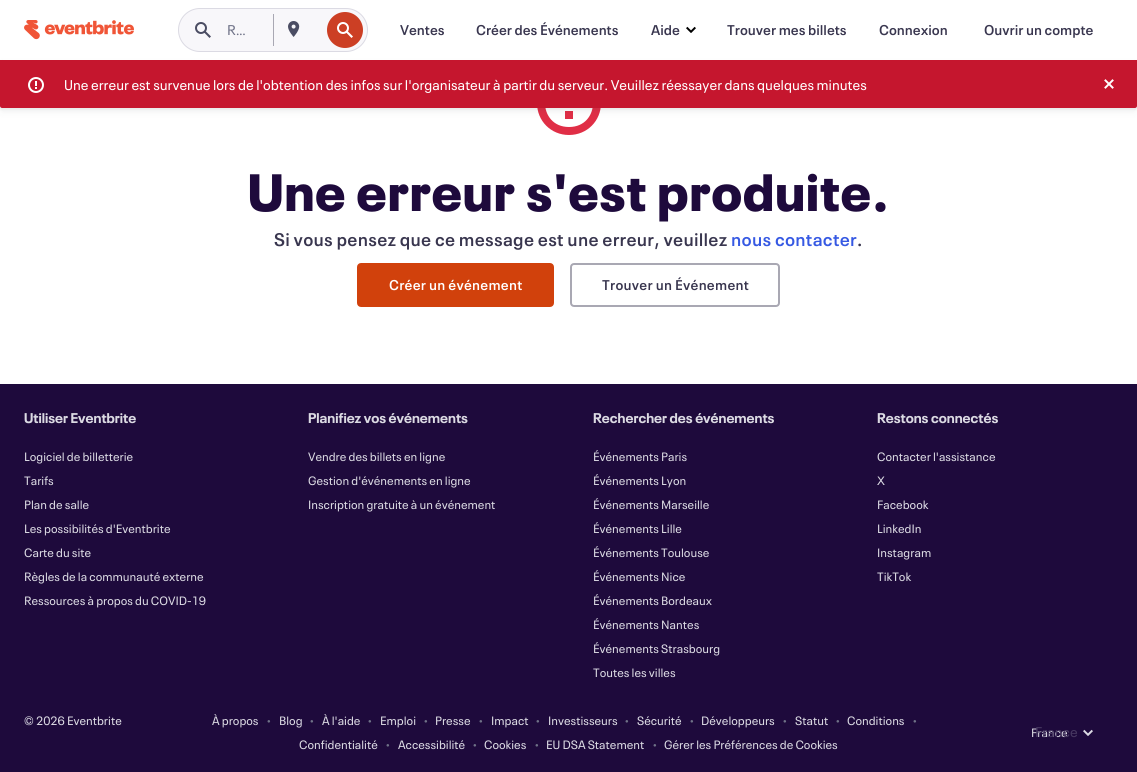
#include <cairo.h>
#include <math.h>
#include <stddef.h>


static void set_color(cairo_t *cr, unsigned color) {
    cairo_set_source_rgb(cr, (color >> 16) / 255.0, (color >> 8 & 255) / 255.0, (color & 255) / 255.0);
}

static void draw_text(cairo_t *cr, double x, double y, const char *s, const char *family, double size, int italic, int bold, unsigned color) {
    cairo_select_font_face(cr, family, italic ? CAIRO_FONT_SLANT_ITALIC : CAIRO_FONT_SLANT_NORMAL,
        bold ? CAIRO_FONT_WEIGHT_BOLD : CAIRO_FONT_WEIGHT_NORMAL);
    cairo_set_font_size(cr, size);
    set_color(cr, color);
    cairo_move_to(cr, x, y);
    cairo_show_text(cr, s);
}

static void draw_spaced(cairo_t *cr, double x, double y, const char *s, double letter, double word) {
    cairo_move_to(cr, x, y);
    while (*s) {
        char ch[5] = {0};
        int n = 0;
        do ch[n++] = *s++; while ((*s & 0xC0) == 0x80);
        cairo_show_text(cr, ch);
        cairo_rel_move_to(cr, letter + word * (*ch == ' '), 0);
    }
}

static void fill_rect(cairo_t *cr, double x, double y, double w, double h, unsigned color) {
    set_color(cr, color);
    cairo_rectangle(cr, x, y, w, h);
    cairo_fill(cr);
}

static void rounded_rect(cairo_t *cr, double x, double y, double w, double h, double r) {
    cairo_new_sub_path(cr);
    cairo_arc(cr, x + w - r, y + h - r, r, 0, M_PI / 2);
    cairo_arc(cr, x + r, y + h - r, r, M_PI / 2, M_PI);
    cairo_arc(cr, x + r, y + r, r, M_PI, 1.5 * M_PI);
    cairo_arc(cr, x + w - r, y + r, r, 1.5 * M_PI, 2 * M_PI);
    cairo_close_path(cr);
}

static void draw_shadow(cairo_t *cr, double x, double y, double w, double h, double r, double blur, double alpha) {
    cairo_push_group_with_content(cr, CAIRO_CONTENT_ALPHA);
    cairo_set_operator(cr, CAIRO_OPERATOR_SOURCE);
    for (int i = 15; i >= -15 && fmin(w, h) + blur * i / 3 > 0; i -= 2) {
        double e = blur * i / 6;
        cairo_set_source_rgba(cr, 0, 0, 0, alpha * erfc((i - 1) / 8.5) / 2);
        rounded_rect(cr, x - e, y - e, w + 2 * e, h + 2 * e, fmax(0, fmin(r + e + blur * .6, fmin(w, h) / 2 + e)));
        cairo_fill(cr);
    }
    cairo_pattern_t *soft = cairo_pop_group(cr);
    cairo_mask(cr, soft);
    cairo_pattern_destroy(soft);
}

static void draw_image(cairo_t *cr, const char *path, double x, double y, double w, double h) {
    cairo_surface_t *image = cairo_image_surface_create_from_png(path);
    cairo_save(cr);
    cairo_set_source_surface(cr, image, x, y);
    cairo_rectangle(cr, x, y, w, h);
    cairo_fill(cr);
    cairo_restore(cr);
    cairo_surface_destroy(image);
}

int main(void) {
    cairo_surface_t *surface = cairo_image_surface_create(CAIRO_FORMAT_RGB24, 1137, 772);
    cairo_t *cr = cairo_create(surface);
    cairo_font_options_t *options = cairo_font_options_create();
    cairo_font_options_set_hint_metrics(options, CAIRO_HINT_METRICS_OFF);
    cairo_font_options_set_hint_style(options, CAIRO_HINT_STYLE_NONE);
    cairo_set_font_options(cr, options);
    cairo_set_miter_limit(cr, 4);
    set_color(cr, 0xFFFFFF);
    cairo_paint(cr);
    draw_image(cr, "assets/img1.png", 24, 20, 110, 20);
    set_color(cr, 0xF8F7FA);
    rounded_rect(cr, 178.5, 8.5, 189, 43, 21.5);
    cairo_fill_preserve(cr);
    set_color(cr, 0xDBDAE3);
    cairo_set_line_width(cr, 1);
    cairo_stroke(cr);
    draw_image(cr, "assets/img2.png", 195, 22, 16, 16);
    draw_text(cr, 227, 35, "R…", "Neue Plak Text", 14, 0, 0, 0x6F7287);
    fill_rect(cr, 273, 14, 1, 32, 0xA9A8B3);
    draw_image(cr, "assets/img3.png", 288, 21, 12, 16);
    draw_image(cr, "assets/img4.png", 327, 12, 36, 36);
    draw_text(cr, 400, 35, "Ventes", "Neue Plak Text SemiBold", 14, 0, 0, 0x39364F);
    draw_text(cr, 476, 35, "Créer des Événements", "Neue Plak Text SemiBold", 14, 0, 0, 0x39364F);
    draw_text(cr, 651, 35, "Aide", "Neue Plak Text SemiBold", 14, 0, 0, 0x39364F);
    draw_image(cr, "assets/img5.png", 686, 26, 10, 7);
    draw_text(cr, 727, 35, "Trouver mes billets", "Neue Plak Text SemiBold", 14, 0, 0, 0x39364F);
    draw_text(cr, 879, 35, "Connexion", "Neue Plak Text SemiBold", 14, 0, 0, 0x39364F);
    draw_text(cr, 984, 35, "Ouvrir un compte", "Neue Plak Text SemiBold", 14, 0, 0, 0x39364F);
    set_color(cr, 0xE02E46);
    cairo_set_fill_rule(cr, CAIRO_FILL_RULE_EVEN_ODD);
    cairo_new_path(cr);
    cairo_move_to(cr, 569, 127);
    cairo_curve_to(cr, 537, 127, 537, 79, 569, 79);
    cairo_curve_to(cr, 601, 79, 601, 127, 569, 127);
    cairo_close_path(cr);
    cairo_move_to(cr, 569, 71);
    cairo_curve_to(cr, 551, 71, 537, 85, 537, 103);
    cairo_curve_to(cr, 537, 121, 551, 135, 569, 135);
    cairo_curve_to(cr, 587, 135, 601, 121, 601, 103);
    cairo_curve_to(cr, 601, 85, 587, 71, 569, 71);
    cairo_close_path(cr);
    cairo_fill(cr);
    fill_rect(cr, 565, 111, 8, 8, 0xE02E46);
    cairo_select_font_face(cr, "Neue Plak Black", CAIRO_FONT_SLANT_NORMAL, CAIRO_FONT_WEIGHT_NORMAL);
    cairo_set_font_size(cr, 52);
    set_color(cr, 0x1E0A3C);
    draw_spaced(cr, 248, 211, "Une erreur s'est produite.", 1, 0);
    cairo_select_font_face(cr, "Neue Plak Text SemiBold", CAIRO_FONT_SLANT_NORMAL, CAIRO_FONT_WEIGHT_NORMAL);
    cairo_set_font_size(cr, 18);
    set_color(cr, 0x39364F);
    draw_spaced(cr, 274, 246, "Si vous pensez que ce message est une erreur, veuillez", 0.25, 0);
    set_color(cr, 0x3659E3);
    draw_spaced(cr, 731, 246, "nous contacter", 0.25, 0);
    set_color(cr, 0x39364F);
    draw_spaced(cr, 857, 246, ".", 0.25, 0);
    set_color(cr, 0xD1410C);
    rounded_rect(cr, 358, 264, 195, 42, 3);
    cairo_fill_preserve(cr);
    cairo_set_line_width(cr, 2);
    cairo_stroke(cr);
    cairo_set_font_size(cr, 14);
    set_color(cr, 0xFFFFFF);
    draw_spaced(cr, 389, 290, "Créer un événement", 0.25, 0);
    rounded_rect(cr, 571, 264, 208, 42, 3);
    set_color(cr, 0xA9A8B3);
    cairo_stroke(cr);
    set_color(cr, 0x39364F);
    draw_spaced(cr, 602, 290, "Trouver un Événement", 0.25, 0);
    fill_rect(cr, 0, 384, 1137, 388, 0x1E0A3C);
    draw_text(cr, 24, 423, "Utiliser Eventbrite", "Neue Plak", 14, 0, 1, 0xDBDAE3);
    draw_text(cr, 24, 461, "Logiciel de billetterie", "Neue Plak Text", 12, 0, 0, 0xDBDAE3);
    draw_text(cr, 24, 485, "Tarifs", "Neue Plak Text", 12, 0, 0, 0xDBDAE3);
    draw_text(cr, 24, 509, "Plan de salle", "Neue Plak Text", 12, 0, 0, 0xDBDAE3);
    draw_text(cr, 24, 533, "Les possibilités d'Eventbrite", "Neue Plak Text", 12, 0, 0, 0xDBDAE3);
    draw_text(cr, 24, 557, "Carte du site", "Neue Plak Text", 12, 0, 0, 0xDBDAE3);
    draw_text(cr, 24, 581, "Règles de la communauté externe", "Neue Plak Text", 12, 0, 0, 0xDBDAE3);
    draw_text(cr, 24, 605, "Ressources à propos du COVID-19", "Neue Plak Text", 12, 0, 0, 0xDBDAE3);
    draw_text(cr, 308, 423, "Planifiez vos événements", "Neue Plak", 14, 0, 1, 0xDBDAE3);
    draw_text(cr, 308, 461, "Vendre des billets en ligne", "Neue Plak Text", 12, 0, 0, 0xDBDAE3);
    draw_text(cr, 308, 485, "Gestion d'événements en ligne", "Neue Plak Text", 12, 0, 0, 0xDBDAE3);
    draw_text(cr, 308, 509, "Inscription gratuite à un événement", "Neue Plak Text", 12, 0, 0, 0xDBDAE3);
    draw_text(cr, 593, 423, "Rechercher des événements", "Neue Plak", 14, 0, 1, 0xDBDAE3);
    draw_text(cr, 593, 461, "Événements Paris", "Neue Plak Text", 12, 0, 0, 0xDBDAE3);
    draw_text(cr, 593, 485, "Événements Lyon", "Neue Plak Text", 12, 0, 0, 0xDBDAE3);
    draw_text(cr, 593, 509, "Événements Marseille", "Neue Plak Text", 12, 0, 0, 0xDBDAE3);
    draw_text(cr, 593, 533, "Événements Lille", "Neue Plak Text", 12, 0, 0, 0xDBDAE3);
    draw_text(cr, 593, 557, "Événements Toulouse", "Neue Plak Text", 12, 0, 0, 0xDBDAE3);
    draw_text(cr, 593, 581, "Événements Nice", "Neue Plak Text", 12, 0, 0, 0xDBDAE3);
    draw_text(cr, 593, 605, "Événements Bordeaux", "Neue Plak Text", 12, 0, 0, 0xDBDAE3);
    draw_text(cr, 593, 629, "Événements Nantes", "Neue Plak Text", 12, 0, 0, 0xDBDAE3);
    draw_text(cr, 593, 653, "Événements Strasbourg", "Neue Plak Text", 12, 0, 0, 0xDBDAE3);
    draw_text(cr, 593, 677, "Toutes les villes", "Neue Plak Text", 12, 0, 0, 0xDBDAE3);
    draw_text(cr, 877, 423, "Restons connectés", "Neue Plak", 14, 0, 1, 0xDBDAE3);
    draw_text(cr, 877, 461, "Contacter l'assistance", "Neue Plak Text", 12, 0, 0, 0xDBDAE3);
    draw_text(cr, 877, 485, "X", "Neue Plak Text", 12, 0, 0, 0xDBDAE3);
    draw_text(cr, 877, 509, "Facebook", "Neue Plak Text", 12, 0, 0, 0xDBDAE3);
    draw_text(cr, 877, 533, "LinkedIn", "Neue Plak Text", 12, 0, 0, 0xDBDAE3);
    draw_text(cr, 877, 557, "Instagram", "Neue Plak Text", 12, 0, 0, 0xDBDAE3);
    draw_text(cr, 877, 581, "TikTok", "Neue Plak Text", 12, 0, 0, 0xDBDAE3);
    draw_text(cr, 24, 725, "© 2026 Eventbrite", "Neue Plak Text", 12, 0, 0, 0xDBDAE3);
    draw_text(cr, 212, 725, "À propos", "Neue Plak Text", 12, 0, 0, 0xDBDAE3);
    draw_text(cr, 267, 723, "●", "Liberation Sans", 6, 0, 0, 0x6F7287);
    draw_text(cr, 279, 725, "Blog", "Neue Plak Text", 12, 0, 0, 0xDBDAE3);
    draw_text(cr, 310, 723, "●", "Liberation Sans", 6, 0, 0, 0x6F7287);
    draw_text(cr, 322, 725, "À l'aide", "Neue Plak Text", 12, 0, 0, 0xDBDAE3);
    draw_text(cr, 368, 723, "●", "Liberation Sans", 6, 0, 0, 0x6F7287);
    draw_text(cr, 380, 725, "Emploi", "Neue Plak Text", 12, 0, 0, 0xDBDAE3);
    draw_text(cr, 424, 723, "●", "Liberation Sans", 6, 0, 0, 0x6F7287);
    draw_text(cr, 435, 725, "Presse", "Neue Plak Text", 12, 0, 0, 0xDBDAE3);
    draw_text(cr, 479, 723, "●", "Liberation Sans", 6, 0, 0, 0x6F7287);
    draw_text(cr, 491, 725, "Impact", "Neue Plak Text", 12, 0, 0, 0xDBDAE3);
    draw_text(cr, 536, 723, "●", "Liberation Sans", 6, 0, 0, 0x6F7287);
    draw_text(cr, 548, 725, "Investisseurs", "Neue Plak Text", 12, 0, 0, 0xDBDAE3);
    draw_text(cr, 625, 723, "●", "Liberation Sans", 6, 0, 0, 0x6F7287);
    draw_text(cr, 637, 725, "Sécurité", "Neue Plak Text", 12, 0, 0, 0xDBDAE3);
    draw_text(cr, 690, 723, "●", "Liberation Sans", 6, 0, 0, 0x6F7287);
    draw_text(cr, 701, 725, "Développeurs", "Neue Plak Text", 12, 0, 0, 0xDBDAE3);
    draw_text(cr, 783, 723, "●", "Liberation Sans", 6, 0, 0, 0x6F7287);
    draw_text(cr, 795, 725, "Statut", "Neue Plak Text", 12, 0, 0, 0xDBDAE3);
    draw_text(cr, 836, 723, "●", "Liberation Sans", 6, 0, 0, 0x6F7287);
    draw_text(cr, 847, 725, "Conditions", "Neue Plak Text", 12, 0, 0, 0xDBDAE3);
    draw_text(cr, 913, 723, "●", "Liberation Sans", 6, 0, 0, 0x6F7287);
    draw_text(cr, 299, 749, "Confidentialité", "Neue Plak Text", 12, 0, 0, 0xDBDAE3);
    draw_text(cr, 386, 747, "●", "Liberation Sans", 6, 0, 0, 0x6F7287);
    draw_text(cr, 398, 749, "Accessibilité", "Neue Plak Text", 12, 0, 0, 0xDBDAE3);
    draw_text(cr, 473, 747, "●", "Liberation Sans", 6, 0, 0, 0x6F7287);
    draw_text(cr, 484, 749, "Cookies", "Neue Plak Text", 12, 0, 0, 0xDBDAE3);
    draw_text(cr, 535, 747, "●", "Liberation Sans", 6, 0, 0, 0x6F7287);
    draw_text(cr, 546, 749, "EU DSA Statement", "Neue Plak Text", 12, 0, 0, 0xDBDAE3);
    draw_text(cr, 653, 747, "●", "Liberation Sans", 6, 0, 0, 0x6F7287);
    draw_text(cr, 664, 749, "Gérer les Préférences de Cookies", "Neue Plak Text", 12, 0, 0, 0xDBDAE3);
    draw_text(cr, 1031, 737, "France", "Neue Plak Text", 12, 0, 0, 0xDBDAE3);
    draw_text(cr, 1035, 737, "France", "Neue Plak Text", 14, 0, 0, 0x473861);
    draw_image(cr, "assets/img6.png", 1083, 729, 10, 7);
    set_color(cr, 0x282C35);
    draw_shadow(cr, 0, 62, 1137, 48, 2, 1, 0.06);
    draw_shadow(cr, 0, 64, 1137, 48, 2, 4, 0.06);
    set_color(cr, 0xC5162E);
    cairo_new_path(cr);
    cairo_move_to(cr, 0, 60);
    cairo_line_to(cr, 1137, 60);
    cairo_line_to(cr, 1137, 106);
    cairo_curve_to(cr, 1137, 107, 1136, 108, 1135, 108);
    cairo_line_to(cr, 2, 108);
    cairo_curve_to(cr, 1, 108, 0, 107, 0, 106);
    cairo_close_path(cr);
    cairo_fill(cr);
    draw_image(cr, "assets/img7.png", 28, 77, 16, 16);
    draw_text(cr, 64, 90, "Une erreur est survenue lors de l'obtention des infos sur l'organisateur à partir du serveur. Veuillez réessayer dans quelques minutes", "Neue Plak Text", 14, 0, 0, 0xFFFFFF);
    draw_image(cr, "assets/img8.png", 1104, 79, 10, 10);
    cairo_surface_write_to_png(surface, "output.png");
    cairo_font_options_destroy(options);
    cairo_destroy(cr);
    cairo_surface_destroy(surface);
    return 0;
}
